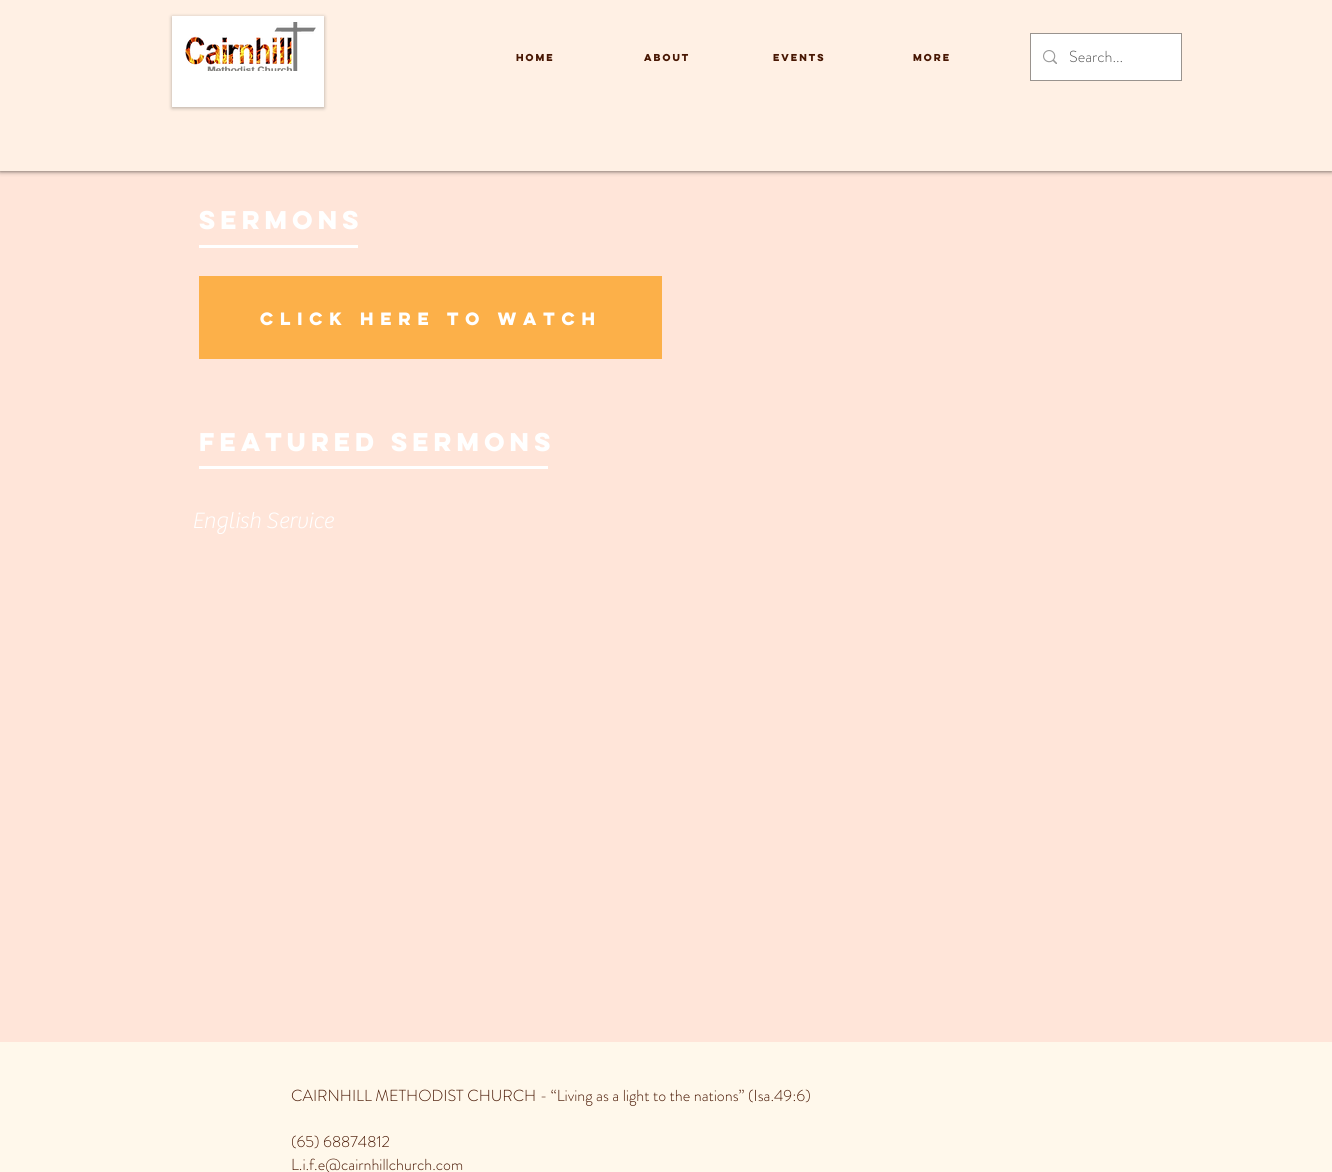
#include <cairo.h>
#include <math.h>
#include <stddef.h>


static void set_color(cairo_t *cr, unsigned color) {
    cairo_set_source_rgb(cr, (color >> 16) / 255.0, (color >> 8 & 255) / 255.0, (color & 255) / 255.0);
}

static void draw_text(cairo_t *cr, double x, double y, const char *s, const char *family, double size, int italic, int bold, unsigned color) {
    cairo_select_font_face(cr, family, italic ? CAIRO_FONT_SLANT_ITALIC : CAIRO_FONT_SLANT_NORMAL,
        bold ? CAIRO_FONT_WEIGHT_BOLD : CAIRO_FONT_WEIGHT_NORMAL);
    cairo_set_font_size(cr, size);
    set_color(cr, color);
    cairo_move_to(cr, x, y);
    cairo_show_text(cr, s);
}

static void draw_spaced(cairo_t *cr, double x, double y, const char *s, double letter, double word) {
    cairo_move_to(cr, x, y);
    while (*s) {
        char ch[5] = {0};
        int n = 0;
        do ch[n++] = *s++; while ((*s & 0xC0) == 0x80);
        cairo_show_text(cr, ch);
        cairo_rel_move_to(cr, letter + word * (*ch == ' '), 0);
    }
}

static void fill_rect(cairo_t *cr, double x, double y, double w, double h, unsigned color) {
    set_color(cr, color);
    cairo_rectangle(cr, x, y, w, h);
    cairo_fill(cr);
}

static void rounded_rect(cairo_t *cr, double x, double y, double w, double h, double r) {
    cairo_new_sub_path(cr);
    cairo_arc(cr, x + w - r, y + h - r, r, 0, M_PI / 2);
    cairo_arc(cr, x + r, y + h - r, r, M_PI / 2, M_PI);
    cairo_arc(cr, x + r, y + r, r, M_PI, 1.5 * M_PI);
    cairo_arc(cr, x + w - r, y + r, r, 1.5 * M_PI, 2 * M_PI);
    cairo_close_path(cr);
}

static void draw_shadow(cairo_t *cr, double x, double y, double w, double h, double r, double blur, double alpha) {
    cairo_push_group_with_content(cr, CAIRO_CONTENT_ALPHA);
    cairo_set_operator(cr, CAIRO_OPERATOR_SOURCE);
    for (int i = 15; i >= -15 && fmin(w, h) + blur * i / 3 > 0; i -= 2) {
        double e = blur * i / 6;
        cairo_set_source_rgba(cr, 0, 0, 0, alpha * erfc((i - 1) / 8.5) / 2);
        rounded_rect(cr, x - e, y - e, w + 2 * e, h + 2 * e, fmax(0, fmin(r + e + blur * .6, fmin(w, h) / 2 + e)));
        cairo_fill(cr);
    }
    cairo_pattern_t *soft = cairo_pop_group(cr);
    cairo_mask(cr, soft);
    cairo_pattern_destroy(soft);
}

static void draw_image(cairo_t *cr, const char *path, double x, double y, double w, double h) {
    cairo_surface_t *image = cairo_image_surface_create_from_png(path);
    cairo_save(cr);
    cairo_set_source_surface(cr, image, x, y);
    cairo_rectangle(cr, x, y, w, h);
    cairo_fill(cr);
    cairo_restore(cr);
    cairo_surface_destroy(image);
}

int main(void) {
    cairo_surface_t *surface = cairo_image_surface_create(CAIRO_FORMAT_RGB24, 1332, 1172);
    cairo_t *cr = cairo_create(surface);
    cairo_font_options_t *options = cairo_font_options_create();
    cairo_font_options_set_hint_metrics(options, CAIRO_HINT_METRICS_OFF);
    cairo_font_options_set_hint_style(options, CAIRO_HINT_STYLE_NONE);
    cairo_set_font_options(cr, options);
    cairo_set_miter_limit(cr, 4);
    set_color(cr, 0xFFE5D9);
    cairo_paint(cr);
    set_color(cr, 0x000000);
    draw_shadow(cr, 0, 0, 1332, 171, 0, 2.5, 0.7);
    fill_rect(cr, 0, 0, 1332, 171, 0xFFF0E4);
    set_color(cr, 0x000000);
    draw_shadow(cr, 172, 17, 152, 91, 0, 2, 0.3);
    fill_rect(cr, 172, 16, 152, 91, 0xFFFFFF);
    draw_image(cr, "assets/img1.png", 185, 22, 131, 49);
    draw_text(cr, 516, 61, "HOME", "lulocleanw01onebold", 9, 0, 1, 0x481703);
    draw_text(cr, 644, 61, "ABOUT", "lulocleanw01onebold", 9, 0, 1, 0x481703);
    draw_text(cr, 773, 61, "EVENTS", "lulocleanw01onebold", 9, 0, 1, 0x481703);
    draw_text(cr, 913, 61, "More", "lulocleanw01onebold", 9, 0, 1, 0x481703);
    cairo_rectangle(cr, 1030.5, 33.5, 151, 47);
    set_color(cr, 0x99938E);
    cairo_set_line_width(cr, 1);
    cairo_stroke(cr);
    fill_rect(cr, 1031, 34, 150, 46, 0xFFFFFF);
    draw_image(cr, "assets/img2.png", 1043, 50, 14, 14);
    draw_text(cr, 1069, 62, "Search...", "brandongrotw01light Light", 16, 0, 0, 0x555555);
    draw_text(cr, 199, 229, "Sermons", "lulocleanw01onebold", 23, 0, 1, 0xFFFFFF);
    fill_rect(cr, 199, 245, 159, 3, 0xFFFFFF);
    fill_rect(cr, 199, 276, 463, 83, 0xFCB049);
    cairo_set_font_size(cr, 16);
    set_color(cr, 0xFFFFFF);
    draw_spaced(cr, 260, 325, "Click here to Watch", 3.25, 0);
    draw_text(cr, 199, 451, "Featured Sermons", "lulocleanw01onebold", 23, 0, 1, 0xFFFFFF);
    fill_rect(cr, 199, 466, 349, 3, 0xFFFFFF);
    draw_text(cr, 192, 528, "English Service", "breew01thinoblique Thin", 23, 0, 0, 0xFFFFFF);
    fill_rect(cr, 0, 1042, 1332, 130, 0xFFF8EB);
    draw_text(cr, 291, 1101, "CAIRNHILL METHODIST CHURCH - “Living as a light to the nations” (Isa.49:6)", "brandongrotw01light Light", 16, 0, 0, 0x481703);
    draw_text(cr, 291, 1147, "(65) 68874812", "brandongrotw01light Light", 16, 0, 0, 0x481703);
    draw_text(cr, 291, 1170, "L.i.f.e@cairnhillchurch.com", "brandongrotw01light Light", 16, 0, 0, 0x481703);
    cairo_surface_write_to_png(surface, "output.png");
    cairo_font_options_destroy(options);
    cairo_destroy(cr);
    cairo_surface_destroy(surface);
    return 0;
}
